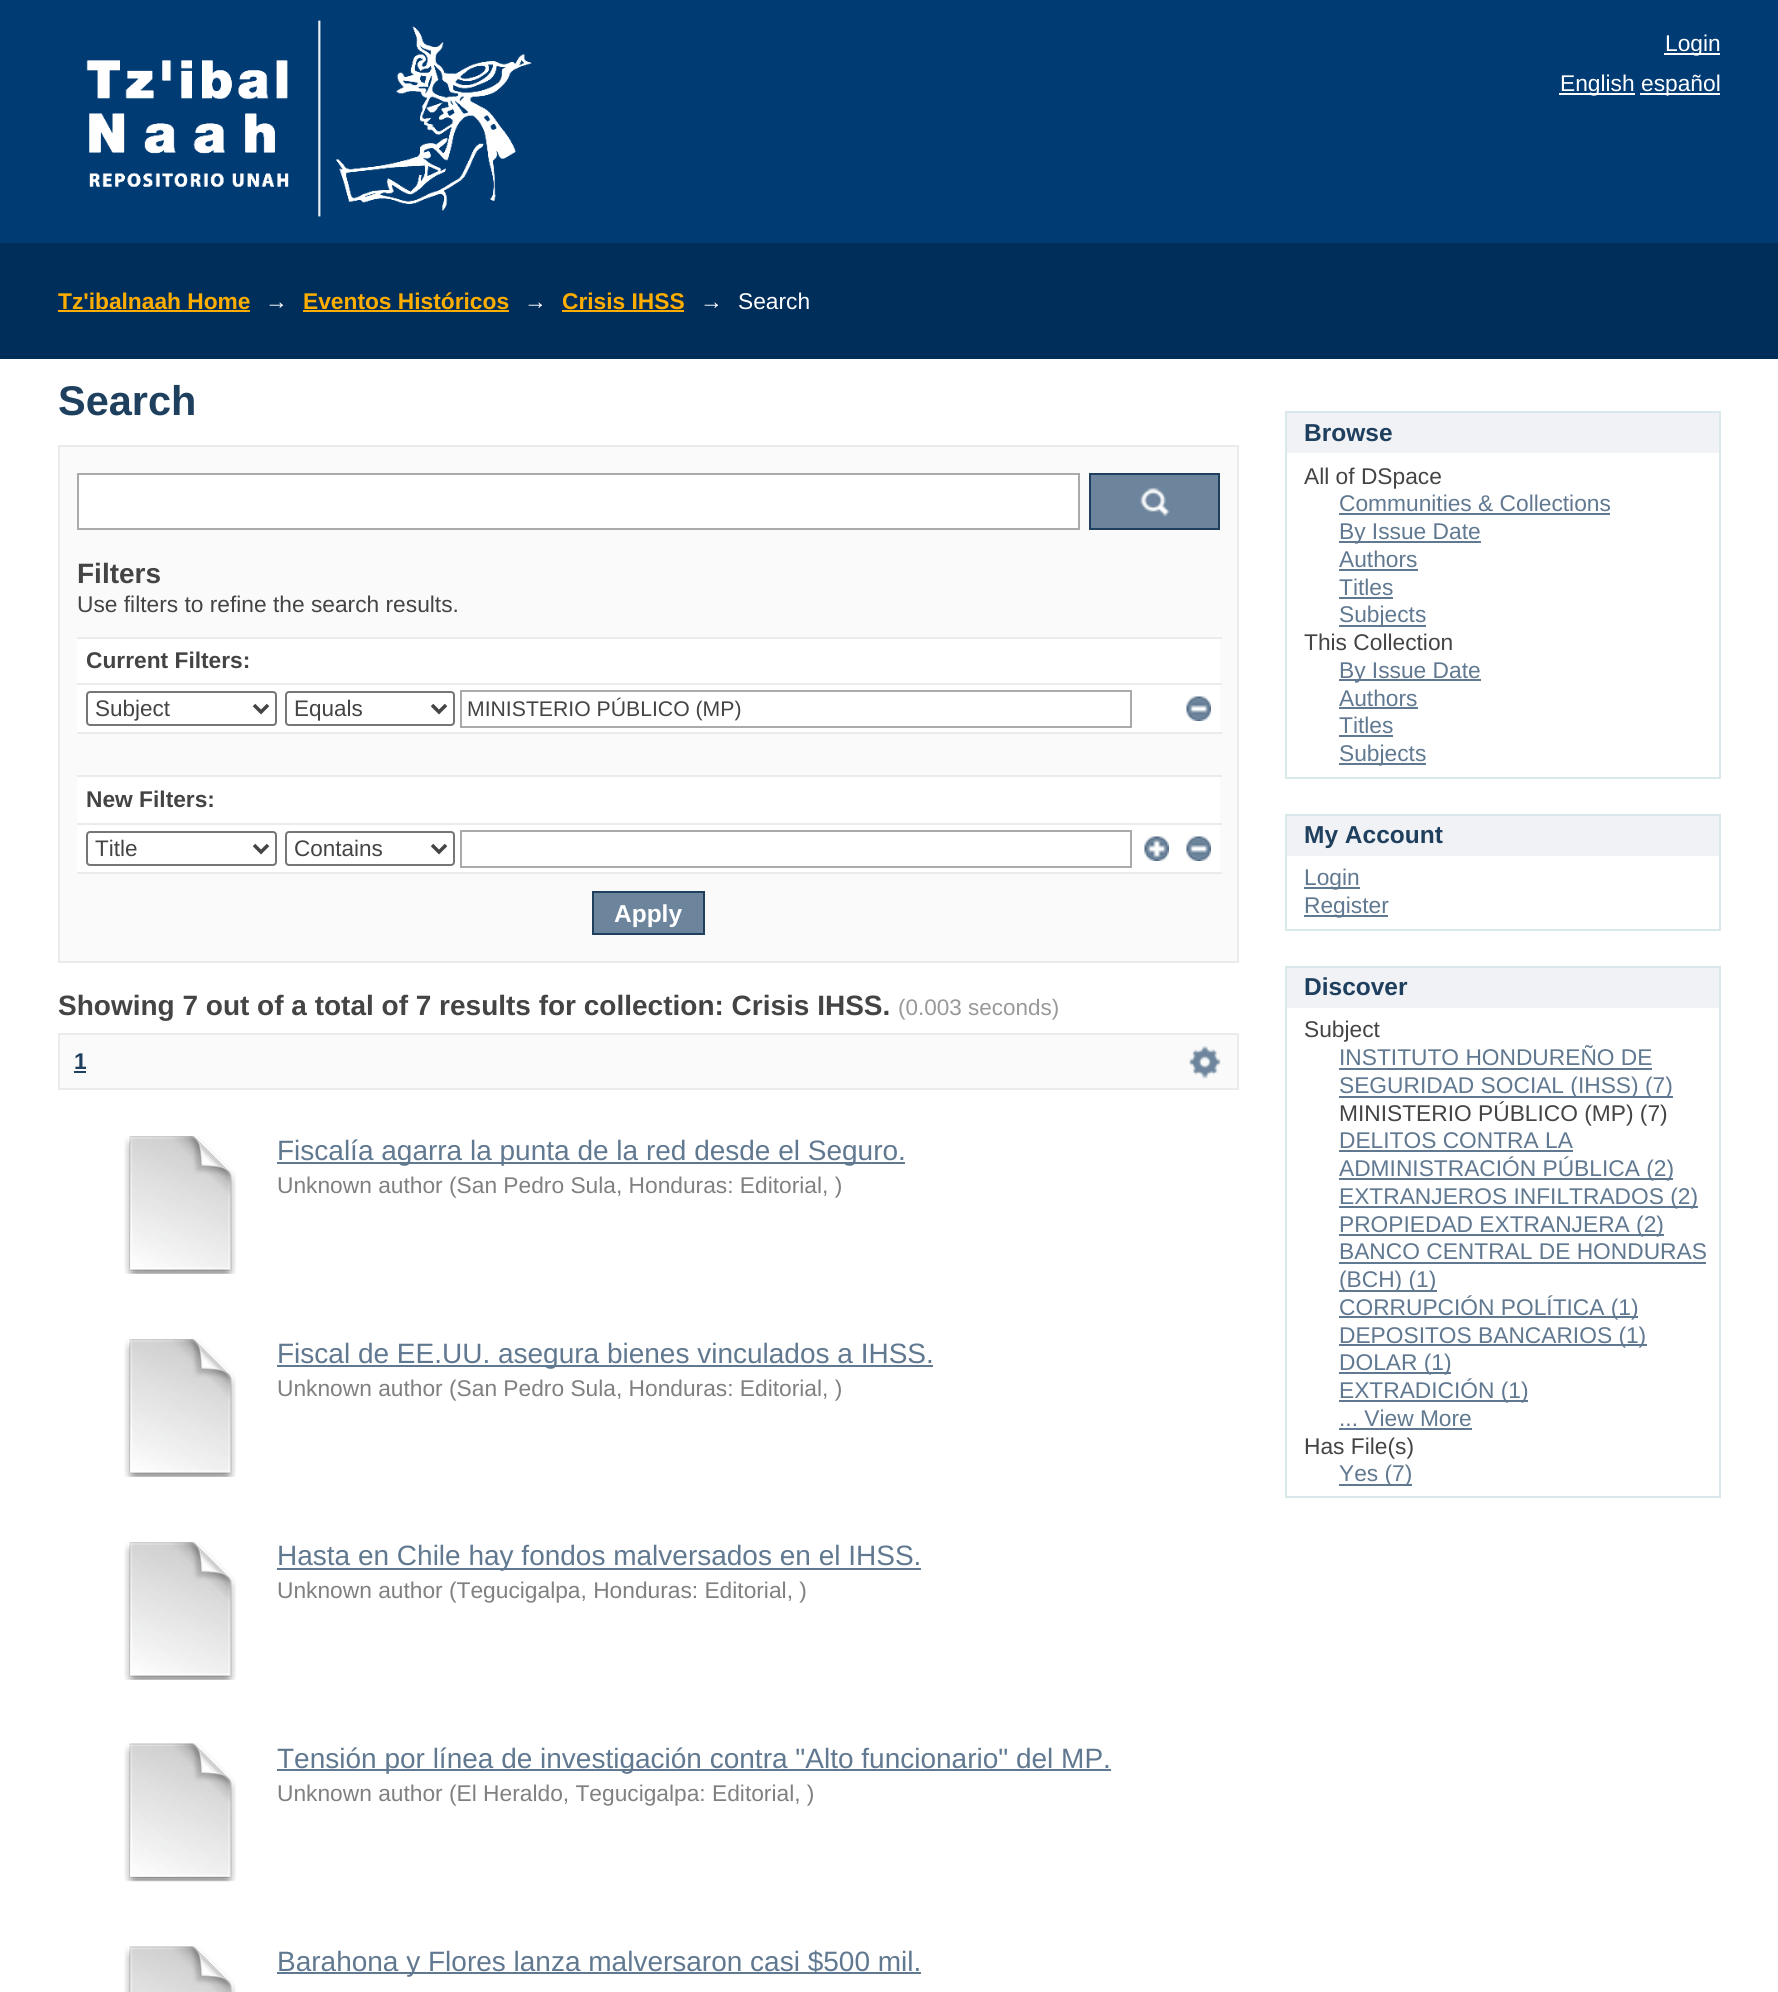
#include <cairo.h>
#include <math.h>
#include <stddef.h>


static void set_color(cairo_t *cr, unsigned color) {
    cairo_set_source_rgb(cr, (color >> 16) / 255.0, (color >> 8 & 255) / 255.0, (color & 255) / 255.0);
}

static void draw_text(cairo_t *cr, double x, double y, const char *s, const char *family, double size, int italic, int bold, unsigned color) {
    cairo_select_font_face(cr, family, italic ? CAIRO_FONT_SLANT_ITALIC : CAIRO_FONT_SLANT_NORMAL,
        bold ? CAIRO_FONT_WEIGHT_BOLD : CAIRO_FONT_WEIGHT_NORMAL);
    cairo_set_font_size(cr, size);
    set_color(cr, color);
    cairo_move_to(cr, x, y);
    cairo_show_text(cr, s);
}

static void fill_rect(cairo_t *cr, double x, double y, double w, double h, unsigned color) {
    set_color(cr, color);
    cairo_rectangle(cr, x, y, w, h);
    cairo_fill(cr);
}

static void rounded_rect(cairo_t *cr, double x, double y, double w, double h, double r) {
    cairo_new_sub_path(cr);
    cairo_arc(cr, x + w - r, y + h - r, r, 0, M_PI / 2);
    cairo_arc(cr, x + r, y + h - r, r, M_PI / 2, M_PI);
    cairo_arc(cr, x + r, y + r, r, M_PI, 1.5 * M_PI);
    cairo_arc(cr, x + w - r, y + r, r, 1.5 * M_PI, 2 * M_PI);
    cairo_close_path(cr);
}

static void draw_image(cairo_t *cr, const char *path, double x, double y, double w, double h) {
    cairo_surface_t *image = cairo_image_surface_create_from_png(path);
    cairo_save(cr);
    cairo_set_source_surface(cr, image, x, y);
    cairo_rectangle(cr, x, y, w, h);
    cairo_fill(cr);
    cairo_restore(cr);
    cairo_surface_destroy(image);
}

int main(void) {
    cairo_surface_t *surface = cairo_image_surface_create(CAIRO_FORMAT_RGB24, 1778, 1992);
    cairo_t *cr = cairo_create(surface);
    cairo_font_options_t *options = cairo_font_options_create();
    cairo_font_options_set_hint_metrics(options, CAIRO_HINT_METRICS_OFF);
    cairo_font_options_set_hint_style(options, CAIRO_HINT_STYLE_NONE);
    cairo_set_font_options(cr, options);
    cairo_set_miter_limit(cr, 4);
    set_color(cr, 0xFFFFFF);
    cairo_paint(cr);
    fill_rect(cr, 0, 0, 1778, 243, 0x003B74);
    draw_image(cr, "assets/img1.png", 86, 20, 446, 197);
    fill_rect(cr, 1664, 53, 56, 2, 0xFFFFFF);
    draw_text(cr, 1665, 51, "Login", "Liberation Sans", 22.75, 0, 0, 0xFFFFFF);
    fill_rect(cr, 1559, 93, 76, 2, 0xFFFFFF);
    draw_text(cr, 1560, 91, "English", "Liberation Sans", 22.75, 0, 0, 0xFFFFFF);
    fill_rect(cr, 1640, 93, 80, 2, 0xFFFFFF);
    draw_text(cr, 1641, 91, "español", "Liberation Sans", 22.75, 0, 0, 0xFFFFFF);
    fill_rect(cr, 0, 243, 1778, 116, 0x002E5B);
    draw_text(cr, 58, 309, "Tz'ibalnaah Home", "Liberation Sans", 22.75, 0, 1, 0xFFAE00);
    fill_rect(cr, 58, 310, 192, 2, 0xFFAE00);
    draw_text(cr, 265, 309, "→", "Liberation Sans", 22.75, 0, 0, 0xFFFFFF);
    draw_text(cr, 303, 309, "Eventos Históricos", "Liberation Sans", 22.75, 0, 1, 0xFFAE00);
    fill_rect(cr, 303, 310, 206, 2, 0xFFAE00);
    draw_text(cr, 524, 309, "→", "Liberation Sans", 22.75, 0, 0, 0xFFFFFF);
    draw_text(cr, 562, 309, "Crisis IHSS", "Liberation Sans", 22.75, 0, 1, 0xFFAE00);
    fill_rect(cr, 562, 310, 122, 2, 0xFFAE00);
    draw_text(cr, 700, 309, "→", "Liberation Sans", 22.75, 0, 0, 0xFFFFFF);
    draw_text(cr, 738, 309, "Search", "Liberation Sans", 22.75, 0, 0, 0xFFFFFF);
    draw_text(cr, 58, 415, "Search", "Liberation Sans", 41.5, 0, 1, 0x1F3F5E);
    set_color(cr, 0xFAFAFA);
    cairo_rectangle(cr, 59, 446, 1179, 516);
    cairo_fill_preserve(cr);
    set_color(cr, 0xEBEBEB);
    cairo_stroke(cr);
    set_color(cr, 0xFFFFFF);
    cairo_rectangle(cr, 78, 474, 1001, 55);
    cairo_fill_preserve(cr);
    set_color(cr, 0xAAAAAA);
    cairo_stroke(cr);
    fill_rect(cr, 1091, 475, 127, 53, 0x6D859C);
    draw_image(cr, "assets/img2.png", 1140, 487, 30, 30);
    cairo_rectangle(cr, 1090, 474, 129, 55);
    set_color(cr, 0x1F3F5E);
    cairo_stroke(cr);
    draw_text(cr, 77, 583, "Filters", "Liberation Sans", 28, 0, 1, 0x444444);
    draw_text(cr, 77, 612, "Use filters to refine the search results.", "Liberation Sans", 22.75, 0, 0, 0x444444);
    fill_rect(cr, 77, 639, 1143, 233, 0xFFFFFF);
    fill_rect(cr, 77, 637, 1145, 2, 0xEBEBEB);
    draw_text(cr, 86, 668, "Current Filters:", "Liberation Sans", 22.75, 0, 1, 0x444444);
    fill_rect(cr, 77, 683, 1145, 2, 0xEBEBEB);
    rounded_rect(cr, 87, 692, 189, 33, 3);
    set_color(cr, 0x767676);
    cairo_stroke(cr);
    cairo_new_path(cr);
    cairo_move_to(cr, 254, 705);
    cairo_line_to(cr, 261, 712);
    cairo_line_to(cr, 268, 705);
    set_color(cr, 0x444444);
    cairo_set_line_width(cr, 3.5);
    cairo_stroke(cr);
    draw_text(cr, 95, 716, "Subject", "Liberation Sans", 22.5, 0, 0, 0x444444);
    rounded_rect(cr, 286, 692, 168, 33, 3);
    set_color(cr, 0x767676);
    cairo_set_line_width(cr, 2);
    cairo_stroke(cr);
    cairo_new_path(cr);
    cairo_move_to(cr, 432, 705);
    cairo_line_to(cr, 439, 712);
    cairo_line_to(cr, 446, 705);
    set_color(cr, 0x444444);
    cairo_set_line_width(cr, 3.5);
    cairo_stroke(cr);
    draw_text(cr, 294, 716, "Equals", "Liberation Sans", 22.5, 0, 0, 0x444444);
    cairo_rectangle(cr, 461, 691, 670, 36);
    set_color(cr, 0xAAAAAA);
    cairo_set_line_width(cr, 2);
    cairo_stroke(cr);
    draw_text(cr, 467, 716, "MINISTERIO PÚBLICO (MP)", "Liberation Sans", 21.2, 0, 0, 0x444444);
    draw_image(cr, "assets/img3.png", 1186, 696, 25, 25);
    fill_rect(cr, 77, 734, 1143, 41, 0xFAFAFA);
    fill_rect(cr, 77, 732, 1145, 2, 0xEBEBEB);
    fill_rect(cr, 77, 775, 1145, 2, 0xEBEBEB);
    draw_text(cr, 86, 807, "New Filters:", "Liberation Sans", 22.75, 0, 1, 0x444444);
    fill_rect(cr, 77, 823, 1145, 2, 0xEBEBEB);
    rounded_rect(cr, 87, 832, 189, 33, 3);
    set_color(cr, 0x767676);
    cairo_stroke(cr);
    cairo_new_path(cr);
    cairo_move_to(cr, 254, 845);
    cairo_line_to(cr, 261, 852);
    cairo_line_to(cr, 268, 845);
    set_color(cr, 0x444444);
    cairo_set_line_width(cr, 3.5);
    cairo_stroke(cr);
    draw_text(cr, 95, 856, "Title", "Liberation Sans", 22.5, 0, 0, 0x444444);
    rounded_rect(cr, 286, 832, 168, 33, 3);
    set_color(cr, 0x767676);
    cairo_set_line_width(cr, 2);
    cairo_stroke(cr);
    cairo_new_path(cr);
    cairo_move_to(cr, 432, 845);
    cairo_line_to(cr, 439, 852);
    cairo_line_to(cr, 446, 845);
    set_color(cr, 0x444444);
    cairo_set_line_width(cr, 3.5);
    cairo_stroke(cr);
    draw_text(cr, 294, 856, "Contains", "Liberation Sans", 22.5, 0, 0, 0x444444);
    cairo_rectangle(cr, 461, 831, 670, 36);
    set_color(cr, 0xAAAAAA);
    cairo_set_line_width(cr, 2);
    cairo_stroke(cr);
    draw_image(cr, "assets/img4.png", 1144, 836, 25, 25);
    draw_image(cr, "assets/img3.png", 1186, 836, 25, 25);
    fill_rect(cr, 77, 872, 1145, 2, 0xEBEBEB);
    set_color(cr, 0x6D859C);
    cairo_rectangle(cr, 593, 892, 111, 42);
    cairo_fill_preserve(cr);
    set_color(cr, 0x1F3F5E);
    cairo_stroke(cr);
    draw_text(cr, 614, 922, "Apply", "Liberation Sans", 24.5, 0, 1, 0xFFFFFF);
    draw_text(cr, 58, 1015, "Showing 7 out of a total of 7 results for collection: Crisis IHSS.", "Liberation Sans", 28, 0, 1, 0x444444);
    draw_text(cr, 898, 1015, "(0.003 seconds)", "Liberation Sans", 22.5, 0, 0, 0x999999);
    set_color(cr, 0xFAFAFA);
    cairo_rectangle(cr, 59, 1034, 1179, 55);
    cairo_fill_preserve(cr);
    set_color(cr, 0xEBEBEB);
    cairo_stroke(cr);
    draw_text(cr, 74, 1069, "1", "Liberation Sans", 22.75, 0, 1, 0x1F3F5E);
    fill_rect(cr, 74, 1071, 12, 2, 0x1F3F5E);
    draw_image(cr, "assets/img5.png", 1189, 1046, 32, 33);
    draw_image(cr, "assets/img6.png", 124, 1136, 112, 138);
    fill_rect(cr, 277, 1162, 628, 2, 0x607890);
    draw_text(cr, 277, 1160, "Fiscalía agarra la punta de la red desde el Seguro.", "Liberation Sans", 28, 0, 0, 0x607890);
    draw_text(cr, 277, 1193, "Unknown author (San Pedro Sula, Honduras: Editorial, )", "Liberation Sans", 22.75, 0, 0, 0x808080);
    draw_image(cr, "assets/img7.png", 124, 1339, 112, 138);
    fill_rect(cr, 277, 1365, 656, 2, 0x607890);
    draw_text(cr, 277, 1363, "Fiscal de EE.UU. asegura bienes vinculados a IHSS.", "Liberation Sans", 28, 0, 0, 0x607890);
    draw_text(cr, 277, 1396, "Unknown author (San Pedro Sula, Honduras: Editorial, )", "Liberation Sans", 22.75, 0, 0, 0x808080);
    draw_image(cr, "assets/img6.png", 124, 1542, 112, 138);
    fill_rect(cr, 277, 1568, 644, 2, 0x607890);
    draw_text(cr, 277, 1565, "Hasta en Chile hay fondos malversados en el IHSS.", "Liberation Sans", 28, 0, 0, 0x607890);
    draw_text(cr, 277, 1598, "Unknown author (Tegucigalpa, Honduras: Editorial, )", "Liberation Sans", 22.75, 0, 0, 0x808080);
    draw_image(cr, "assets/img8.png", 124, 1743, 112, 139);
    fill_rect(cr, 277, 1769, 834, 2, 0x607890);
    draw_text(cr, 277, 1768, "Tensión por línea de investigación contra \"Alto funcionario\" del MP.", "Liberation Sans", 28, 0, 0, 0x607890);
    draw_text(cr, 277, 1801, "Unknown author (El Heraldo, Tegucigalpa: Editorial, )", "Liberation Sans", 22.75, 0, 0, 0x808080);
    draw_image(cr, "assets/img9.png", 124, 1946, 112, 46);
    fill_rect(cr, 277, 1972, 644, 2, 0x607890);
    draw_text(cr, 277, 1971, "Barahona y Flores lanza malversaron casi $500 mil.", "Liberation Sans", 28, 0, 0, 0x607890);
    fill_rect(cr, 1287, 413, 432, 40, 0xF0F2F5);
    fill_rect(cr, 1285, 411, 435, 2, 0xD8E8EB);
    fill_rect(cr, 1719, 411, 2, 368, 0xD8E8EB);
    fill_rect(cr, 1285, 411, 2, 42, 0xD8E8EB);
    draw_text(cr, 1304, 441, "Browse", "Liberation Sans", 24.5, 0, 1, 0x1F3F5E);
    fill_rect(cr, 1285, 777, 435, 2, 0xD8E8EB);
    fill_rect(cr, 1285, 453, 2, 326, 0xD8E8EB);
    draw_text(cr, 1304, 484, "All of DSpace", "Liberation Sans", 22.75, 0, 0, 0x444444);
    draw_text(cr, 1339, 511, "Communities & Collections", "Liberation Sans", 22.75, 0, 0, 0x607890);
    fill_rect(cr, 1339, 513, 271, 2, 0x607890);
    fill_rect(cr, 1339, 541, 142, 2, 0x607890);
    draw_text(cr, 1339, 539, "By Issue Date", "Liberation Sans", 22.75, 0, 0, 0x607890);
    draw_text(cr, 1339, 567, "Authors", "Liberation Sans", 22.75, 0, 0, 0x607890);
    fill_rect(cr, 1339, 569, 79, 2, 0x607890);
    draw_text(cr, 1339, 595, "Titles", "Liberation Sans", 22.75, 0, 0, 0x607890);
    fill_rect(cr, 1339, 597, 54, 2, 0x607890);
    fill_rect(cr, 1339, 625, 87, 2, 0x607890);
    draw_text(cr, 1339, 622, "Subjects", "Liberation Sans", 22.75, 0, 0, 0x607890);
    draw_text(cr, 1304, 650, "This Collection", "Liberation Sans", 22.75, 0, 0, 0x444444);
    fill_rect(cr, 1339, 679, 142, 2, 0x607890);
    draw_text(cr, 1339, 678, "By Issue Date", "Liberation Sans", 22.75, 0, 0, 0x607890);
    draw_text(cr, 1339, 706, "Authors", "Liberation Sans", 22.75, 0, 0, 0x607890);
    fill_rect(cr, 1339, 707, 79, 2, 0x607890);
    draw_text(cr, 1339, 733, "Titles", "Liberation Sans", 22.75, 0, 0, 0x607890);
    fill_rect(cr, 1339, 735, 54, 2, 0x607890);
    fill_rect(cr, 1339, 763, 87, 2, 0x607890);
    draw_text(cr, 1339, 761, "Subjects", "Liberation Sans", 22.75, 0, 0, 0x607890);
    fill_rect(cr, 1287, 816, 432, 40, 0xF0F2F5);
    fill_rect(cr, 1285, 814, 435, 2, 0xD8E8EB);
    fill_rect(cr, 1719, 814, 2, 117, 0xD8E8EB);
    fill_rect(cr, 1285, 814, 2, 42, 0xD8E8EB);
    draw_text(cr, 1304, 843, "My Account", "Liberation Sans", 24.5, 0, 1, 0x1F3F5E);
    fill_rect(cr, 1285, 929, 435, 2, 0xD8E8EB);
    fill_rect(cr, 1285, 856, 2, 75, 0xD8E8EB);
    fill_rect(cr, 1304, 887, 56, 2, 0x607890);
    draw_text(cr, 1304, 885, "Login", "Liberation Sans", 22.75, 0, 0, 0x607890);
    fill_rect(cr, 1304, 915, 84, 2, 0x607890);
    draw_text(cr, 1304, 913, "Register", "Liberation Sans", 22.75, 0, 0, 0x607890);
    fill_rect(cr, 1287, 968, 432, 40, 0xF0F2F5);
    fill_rect(cr, 1285, 966, 435, 2, 0xD8E8EB);
    fill_rect(cr, 1719, 966, 2, 532, 0xD8E8EB);
    fill_rect(cr, 1285, 966, 2, 42, 0xD8E8EB);
    draw_text(cr, 1304, 995, "Discover", "Liberation Sans", 24.5, 0, 1, 0x1F3F5E);
    fill_rect(cr, 1285, 1496, 435, 2, 0xD8E8EB);
    fill_rect(cr, 1285, 1008, 2, 490, 0xD8E8EB);
    draw_text(cr, 1304, 1037, "Subject", "Liberation Sans", 22.75, 0, 0, 0x444444);
    draw_text(cr, 1339, 1065, "INSTITUTO HONDUREÑO DE", "Liberation Sans", 22.75, 0, 0, 0x607890);
    fill_rect(cr, 1339, 1068, 313, 2, 0x607890);
    fill_rect(cr, 1339, 1096, 334, 2, 0x607890);
    draw_text(cr, 1339, 1093, "SEGURIDAD SOCIAL (IHSS) (7)", "Liberation Sans", 22.75, 0, 0, 0x607890);
    draw_text(cr, 1339, 1121, "MINISTERIO PÚBLICO (MP) (7)", "Liberation Sans", 22.75, 0, 0, 0x444444);
    draw_text(cr, 1339, 1148, "DELITOS CONTRA LA", "Liberation Sans", 22.75, 0, 0, 0x607890);
    fill_rect(cr, 1339, 1150, 234, 2, 0x607890);
    fill_rect(cr, 1339, 1178, 334, 2, 0x607890);
    draw_text(cr, 1339, 1176, "ADMINISTRACIÓN PÚBLICA (2)", "Liberation Sans", 22.75, 0, 0, 0x607890);
    fill_rect(cr, 1339, 1206, 359, 2, 0x607890);
    draw_text(cr, 1339, 1204, "EXTRANJEROS INFILTRADOS (2)", "Liberation Sans", 22.75, 0, 0, 0x607890);
    fill_rect(cr, 1339, 1234, 325, 2, 0x607890);
    draw_text(cr, 1339, 1232, "PROPIEDAD EXTRANJERA (2)", "Liberation Sans", 22.75, 0, 0, 0x607890);
    draw_text(cr, 1339, 1259, "BANCO CENTRAL DE HONDURAS", "Liberation Sans", 22.75, 0, 0, 0x607890);
    fill_rect(cr, 1339, 1262, 367, 2, 0x607890);
    fill_rect(cr, 1339, 1290, 98, 2, 0x607890);
    draw_text(cr, 1339, 1287, "(BCH) (1)", "Liberation Sans", 22.75, 0, 0, 0x607890);
    fill_rect(cr, 1339, 1316, 299, 2, 0x607890);
    draw_text(cr, 1339, 1315, "CORRUPCIÓN POLÍTICA (1)", "Liberation Sans", 22.75, 0, 0, 0x607890);
    fill_rect(cr, 1339, 1344, 308, 2, 0x607890);
    draw_text(cr, 1339, 1343, "DEPOSITOS BANCARIOS (1)", "Liberation Sans", 22.75, 0, 0, 0x607890);
    fill_rect(cr, 1339, 1372, 112, 2, 0x607890);
    draw_text(cr, 1339, 1370, "DOLAR (1)", "Liberation Sans", 22.75, 0, 0, 0x607890);
    fill_rect(cr, 1339, 1400, 189, 2, 0x607890);
    draw_text(cr, 1339, 1398, "EXTRADICIÓN (1)", "Liberation Sans", 22.75, 0, 0, 0x607890);
    draw_text(cr, 1339, 1426, "... View More", "Liberation Sans", 22.75, 0, 0, 0x607890);
    fill_rect(cr, 1339, 1428, 133, 2, 0x607890);
    draw_text(cr, 1304, 1454, "Has File(s)", "Liberation Sans", 22.75, 0, 0, 0x444444);
    fill_rect(cr, 1339, 1484, 73, 2, 0x607890);
    draw_text(cr, 1339, 1481, "Yes (7)", "Liberation Sans", 22.75, 0, 0, 0x607890);
    cairo_surface_write_to_png(surface, "output.png");
    cairo_font_options_destroy(options);
    cairo_destroy(cr);
    cairo_surface_destroy(surface);
    return 0;
}
